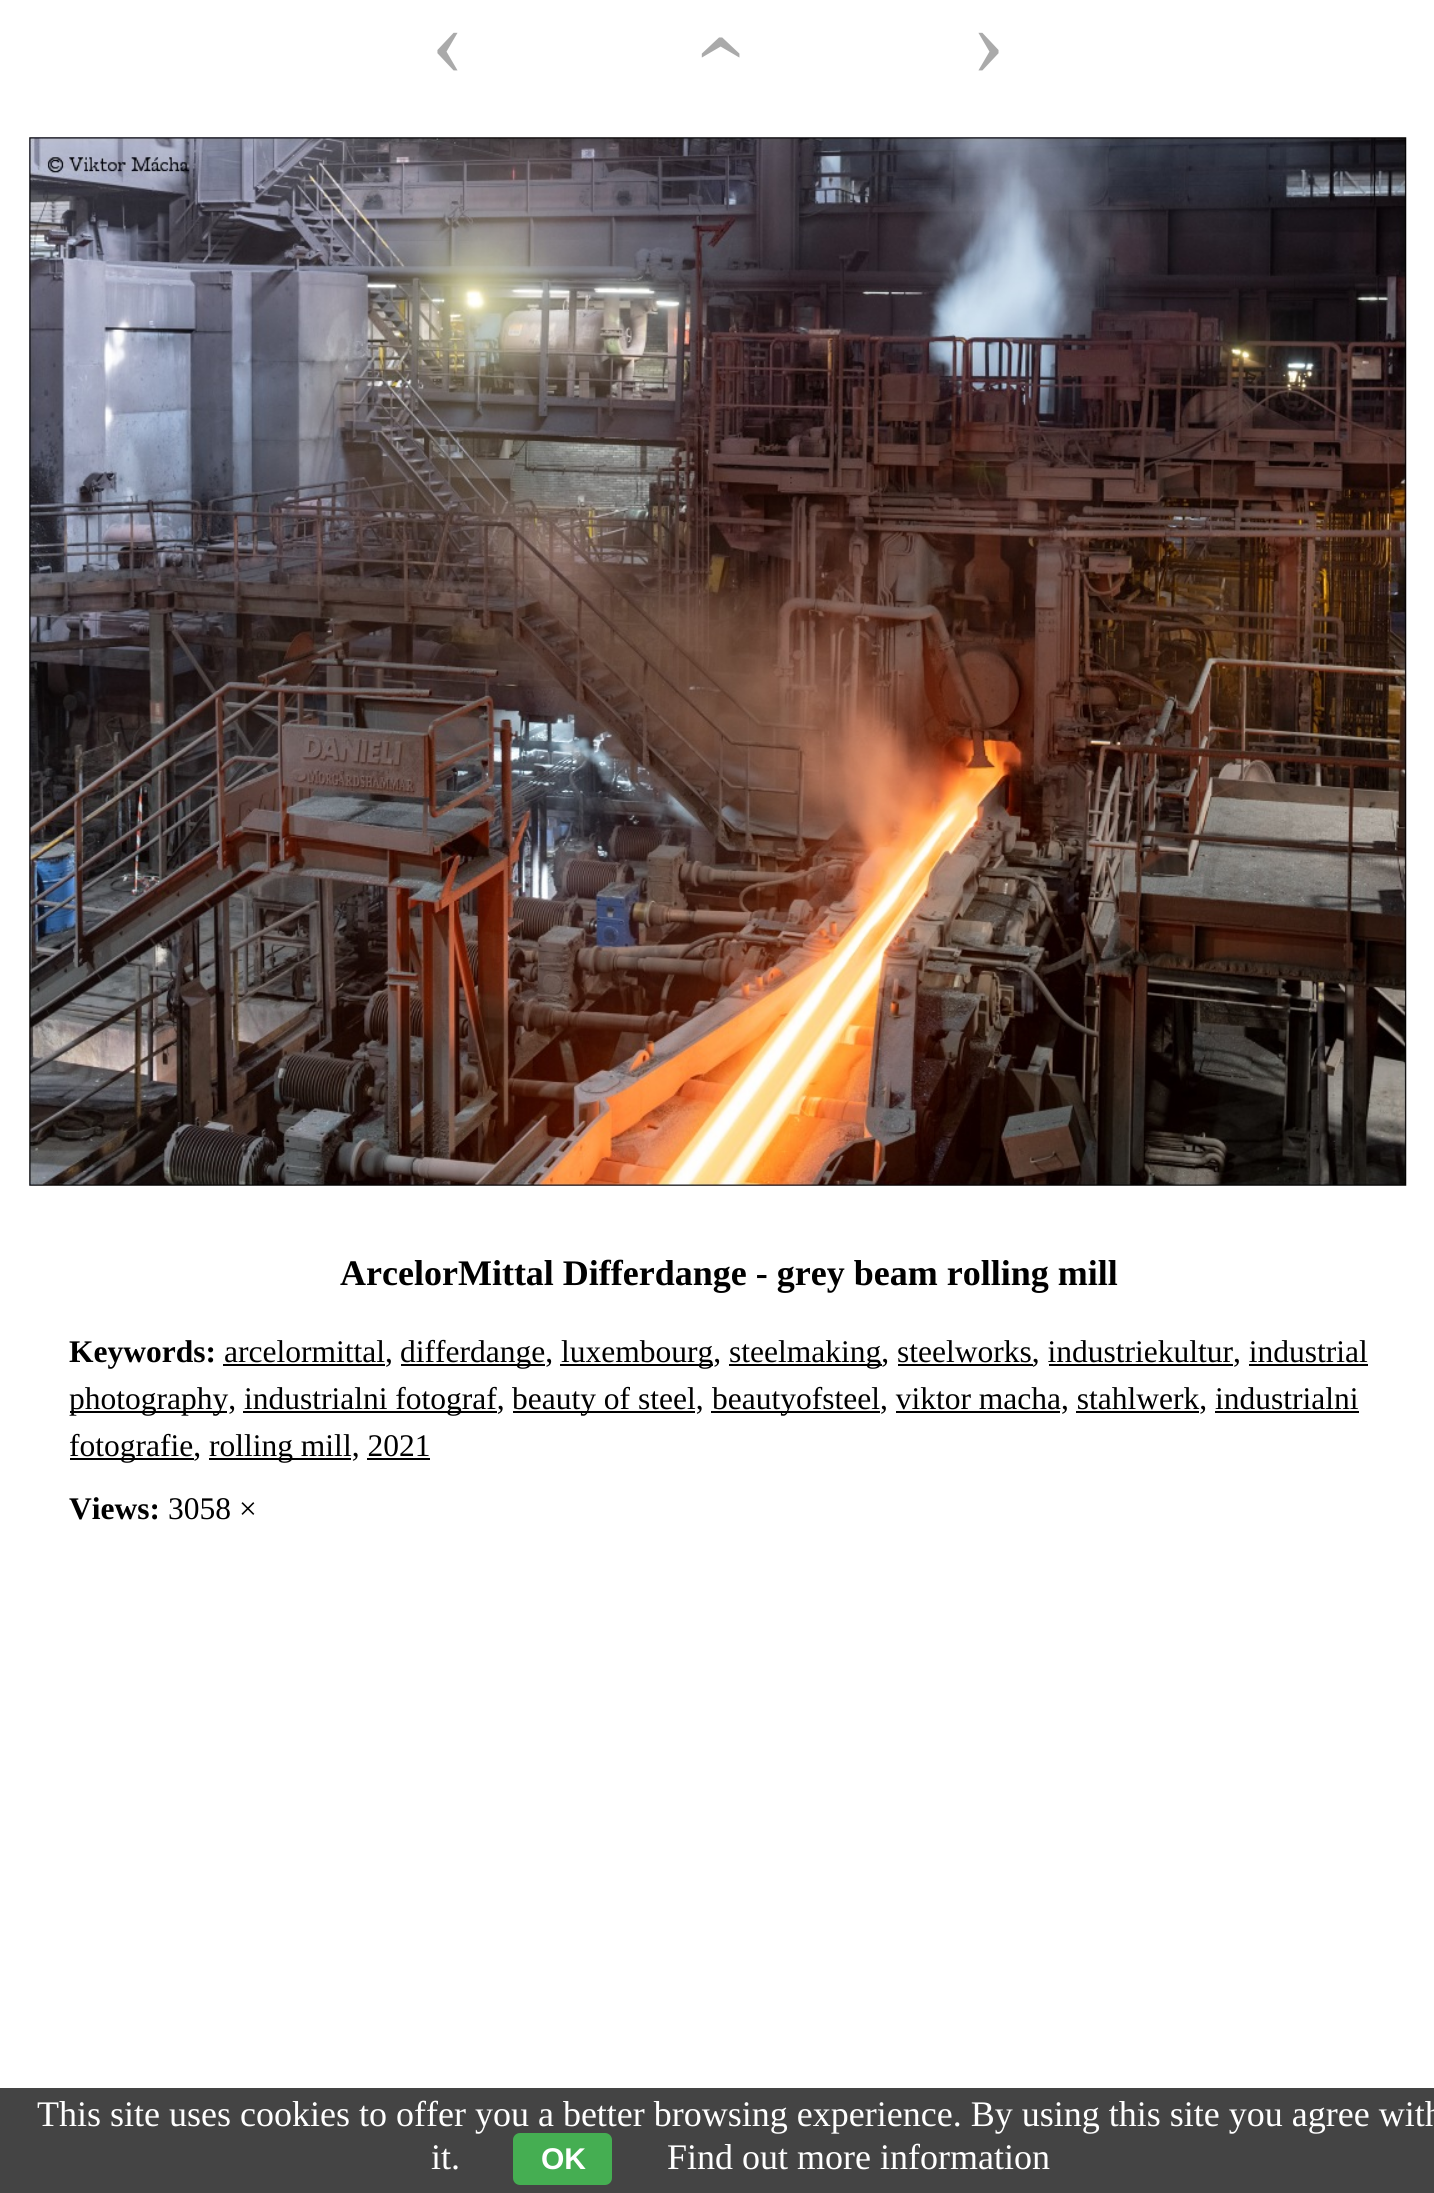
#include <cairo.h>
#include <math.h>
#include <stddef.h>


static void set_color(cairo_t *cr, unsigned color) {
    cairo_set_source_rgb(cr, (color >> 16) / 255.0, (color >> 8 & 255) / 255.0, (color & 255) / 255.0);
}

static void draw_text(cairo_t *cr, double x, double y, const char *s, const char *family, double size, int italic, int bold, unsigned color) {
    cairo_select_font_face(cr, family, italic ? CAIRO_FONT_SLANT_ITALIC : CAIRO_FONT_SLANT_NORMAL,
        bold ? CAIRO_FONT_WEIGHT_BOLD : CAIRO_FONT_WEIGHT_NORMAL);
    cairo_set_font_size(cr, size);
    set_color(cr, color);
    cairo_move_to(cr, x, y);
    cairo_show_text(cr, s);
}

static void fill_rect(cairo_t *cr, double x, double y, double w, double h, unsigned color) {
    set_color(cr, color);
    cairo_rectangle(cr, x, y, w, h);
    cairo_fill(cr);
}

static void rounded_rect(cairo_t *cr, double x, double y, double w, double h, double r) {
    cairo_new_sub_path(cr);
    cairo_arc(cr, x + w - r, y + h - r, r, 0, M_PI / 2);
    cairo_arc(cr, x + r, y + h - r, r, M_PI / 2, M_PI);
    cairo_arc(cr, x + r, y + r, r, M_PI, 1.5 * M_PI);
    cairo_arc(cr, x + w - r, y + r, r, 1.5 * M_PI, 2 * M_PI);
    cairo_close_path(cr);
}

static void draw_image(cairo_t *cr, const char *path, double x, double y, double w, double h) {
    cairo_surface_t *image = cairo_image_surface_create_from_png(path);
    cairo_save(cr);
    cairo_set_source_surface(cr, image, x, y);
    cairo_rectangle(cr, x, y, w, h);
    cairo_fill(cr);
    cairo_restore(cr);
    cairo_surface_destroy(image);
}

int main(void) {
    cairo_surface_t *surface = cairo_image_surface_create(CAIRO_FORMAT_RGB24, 1434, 2193);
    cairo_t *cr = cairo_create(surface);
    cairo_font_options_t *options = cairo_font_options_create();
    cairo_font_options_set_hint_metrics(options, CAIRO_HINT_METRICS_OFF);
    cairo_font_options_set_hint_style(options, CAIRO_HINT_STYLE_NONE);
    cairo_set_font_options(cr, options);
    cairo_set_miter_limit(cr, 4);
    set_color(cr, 0xFFFFFF);
    cairo_paint(cr);
    draw_text(cr, 431, 74, "‹", "Liberation Serif", 99, 0, 0, 0xAAAAAA);
    cairo_save(cr);
    cairo_translate(cr, 743, 64);
    cairo_rotate(cr, -90 * M_PI / 180);
    draw_text(cr, 0, 0, "›", "Liberation Serif", 99, 0, 0, 0xAAAAAA);
    cairo_restore(cr);
    draw_text(cr, 972, 74, "›", "Liberation Serif", 99, 0, 0, 0xAAAAAA);
    draw_image(cr, "assets/img1.png", 29, 137, 1378, 1049);
    draw_text(cr, 340, 1285, "ArcelorMittal Differdange - grey beam rolling mill", "Liberation Serif", 36, 0, 1, 0x000000);
    draw_text(cr, 69, 1362, "Keywords:", "Liberation Serif", 31.5, 0, 1, 0x000000);
    fill_rect(cr, 223, 1364, 162, 2, 0x000000);
    draw_text(cr, 224, 1362, "arcelormittal,", "Liberation Serif", 31.5, 0, 0, 0x000000);
    fill_rect(cr, 401, 1364, 144, 2, 0x000000);
    draw_text(cr, 400, 1362, "differdange,", "Liberation Serif", 31.5, 0, 0, 0x000000);
    fill_rect(cr, 560, 1364, 153, 2, 0x000000);
    draw_text(cr, 561, 1362, "luxembourg,", "Liberation Serif", 31.5, 0, 0, 0x000000);
    fill_rect(cr, 729, 1364, 153, 2, 0x000000);
    draw_text(cr, 729, 1362, "steelmaking, steelworks, industriekultur, industrial", "Liberation Serif", 31.5, 0, 0, 0x000000);
    fill_rect(cr, 898, 1364, 135, 2, 0x000000);
    fill_rect(cr, 1049, 1364, 184, 2, 0x000000);
    fill_rect(cr, 70, 1411, 157, 2, 0x000000);
    draw_text(cr, 69, 1409, "photography,", "Liberation Serif", 31.5, 0, 0, 0x000000);
    fill_rect(cr, 1249, 1364, 119, 2, 0x000000);
    fill_rect(cr, 243, 1411, 254, 2, 0x000000);
    draw_text(cr, 244, 1409, "industrialni fotograf,", "Liberation Serif", 31.5, 0, 0, 0x000000);
    fill_rect(cr, 513, 1411, 182, 2, 0x000000);
    draw_text(cr, 512, 1409, "beauty of steel,", "Liberation Serif", 31.5, 0, 0, 0x000000);
    fill_rect(cr, 711, 1411, 169, 2, 0x000000);
    draw_text(cr, 712, 1409, "beautyofsteel, viktor macha, stahlwerk, industrialni", "Liberation Serif", 31.5, 0, 0, 0x000000);
    fill_rect(cr, 896, 1411, 164, 2, 0x000000);
    fill_rect(cr, 1076, 1411, 123, 2, 0x000000);
    fill_rect(cr, 70, 1458, 124, 2, 0x000000);
    draw_text(cr, 69, 1456, "fotografie,", "Liberation Serif", 31.5, 0, 0, 0x000000);
    fill_rect(cr, 1215, 1411, 144, 2, 0x000000);
    fill_rect(cr, 209, 1458, 142, 2, 0x000000);
    draw_text(cr, 209, 1456, "rolling mill, 2021", "Liberation Serif", 31.5, 0, 0, 0x000000);
    fill_rect(cr, 367, 1458, 63, 2, 0x000000);
    draw_text(cr, 69, 1519, "Views:", "Liberation Serif", 31.5, 0, 1, 0x000000);
    draw_text(cr, 168, 1519, "3058 ×", "Liberation Serif", 31.5, 0, 0, 0x000000);
    fill_rect(cr, 0, 2088, 1434, 105, 0x444444);
    draw_text(cr, 37, 2126, "This site uses cookies to offer you a better browsing experience. By using this site you agree with", "Liberation Serif", 36, 0, 0, 0xFFFFFF);
    draw_text(cr, 431, 2169, "it.", "Liberation Serif", 36, 0, 0, 0xFFFFFF);
    set_color(cr, 0x45AE52);
    rounded_rect(cr, 513, 2133, 99, 52, 7);
    cairo_fill(cr);
    draw_text(cr, 541, 2169, "OK", "Liberation Sans", 30, 0, 1, 0xFFFFFF);
    draw_text(cr, 667, 2169, "Find out more information", "Liberation Serif", 36, 0, 0, 0xFFFFFF);
    cairo_surface_write_to_png(surface, "output.png");
    cairo_font_options_destroy(options);
    cairo_destroy(cr);
    cairo_surface_destroy(surface);
    return 0;
}
